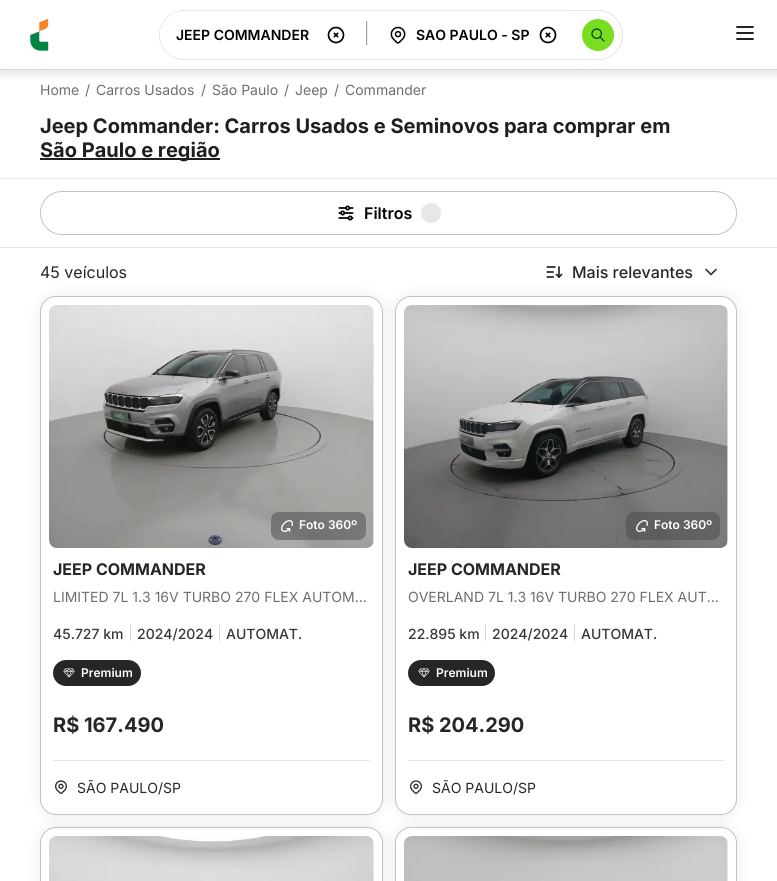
#include <cairo.h>
#include <math.h>
#include <stddef.h>


static void set_color(cairo_t *cr, unsigned color) {
    cairo_set_source_rgb(cr, (color >> 16) / 255.0, (color >> 8 & 255) / 255.0, (color & 255) / 255.0);
}

static void draw_text(cairo_t *cr, double x, double y, const char *s, const char *family, double size, int italic, int bold, unsigned color) {
    cairo_select_font_face(cr, family, italic ? CAIRO_FONT_SLANT_ITALIC : CAIRO_FONT_SLANT_NORMAL,
        bold ? CAIRO_FONT_WEIGHT_BOLD : CAIRO_FONT_WEIGHT_NORMAL);
    cairo_set_font_size(cr, size);
    set_color(cr, color);
    cairo_move_to(cr, x, y);
    cairo_show_text(cr, s);
}

static void fill_rect(cairo_t *cr, double x, double y, double w, double h, unsigned color) {
    set_color(cr, color);
    cairo_rectangle(cr, x, y, w, h);
    cairo_fill(cr);
}

static void rounded_rect(cairo_t *cr, double x, double y, double w, double h, double r) {
    cairo_new_sub_path(cr);
    cairo_arc(cr, x + w - r, y + h - r, r, 0, M_PI / 2);
    cairo_arc(cr, x + r, y + h - r, r, M_PI / 2, M_PI);
    cairo_arc(cr, x + r, y + r, r, M_PI, 1.5 * M_PI);
    cairo_arc(cr, x + w - r, y + r, r, 1.5 * M_PI, 2 * M_PI);
    cairo_close_path(cr);
}

static void draw_shadow(cairo_t *cr, double x, double y, double w, double h, double r, double blur, double alpha) {
    cairo_push_group_with_content(cr, CAIRO_CONTENT_ALPHA);
    cairo_set_operator(cr, CAIRO_OPERATOR_SOURCE);
    for (int i = 15; i >= -15 && fmin(w, h) + blur * i / 3 > 0; i -= 2) {
        double e = blur * i / 6;
        cairo_set_source_rgba(cr, 0, 0, 0, alpha * erfc((i - 1) / 8.5) / 2);
        rounded_rect(cr, x - e, y - e, w + 2 * e, h + 2 * e, fmax(0, fmin(r + e + blur * .6, fmin(w, h) / 2 + e)));
        cairo_fill(cr);
    }
    cairo_pattern_t *soft = cairo_pop_group(cr);
    cairo_mask(cr, soft);
    cairo_pattern_destroy(soft);
}

static void draw_image(cairo_t *cr, const char *path, double x, double y, double w, double h) {
    cairo_surface_t *image = cairo_image_surface_create_from_png(path);
    cairo_save(cr);
    cairo_set_source_surface(cr, image, x, y);
    cairo_rectangle(cr, x, y, w, h);
    cairo_fill(cr);
    cairo_restore(cr);
    cairo_surface_destroy(image);
}

int main(void) {
    cairo_surface_t *surface = cairo_image_surface_create(CAIRO_FORMAT_RGB24, 777, 881);
    cairo_t *cr = cairo_create(surface);
    cairo_font_options_t *options = cairo_font_options_create();
    cairo_font_options_set_hint_metrics(options, CAIRO_HINT_METRICS_OFF);
    cairo_font_options_set_hint_style(options, CAIRO_HINT_STYLE_NONE);
    cairo_set_font_options(cr, options);
    cairo_set_miter_limit(cr, 4);
    set_color(cr, 0xFFFFFF);
    cairo_paint(cr);
    fill_rect(cr, 0, 69, 777, 1, 0xE6E6E6);
    cairo_save(cr);
    cairo_rectangle(cr, 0, 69, 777, 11);
    cairo_clip(cr);
    set_color(cr, 0x262626);
    draw_shadow(cr, -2, 2, 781, 73, 0, 5, 0.12);
    cairo_restore(cr);
    draw_image(cr, "assets/img1.png", 30, 19, 19, 32);
    rounded_rect(cr, 159.5, 10.5, 463, 49, 24.5);
    cairo_set_line_width(cr, 1);
    cairo_stroke(cr);
    set_color(cr, 0xFFFFFF);
    rounded_rect(cr, 160, 11, 202, 48, 24);
    cairo_fill(cr);
    draw_text(cr, 176, 40, "JEEP COMMANDER", "Inter SemiBold", 14, 0, 0, 0x000000);
    draw_image(cr, "assets/img2.png", 327, 26, 18, 18);
    fill_rect(cr, 367, 21, 1, 24, 0xEEEEEE);
    fill_rect(cr, 366, 44, 2, 1, 0xEEEEEE);
    fill_rect(cr, 366, 21, 1, 24, 0x9F9F9F);
    draw_image(cr, "assets/img3.png", 390, 26, 16, 18);
    draw_text(cr, 416, 40, "SAO PAULO - SP", "Inter SemiBold", 14, 0, 0, 0x000000);
    draw_image(cr, "assets/img2.png", 539, 26, 18, 18);
    set_color(cr, 0x78DE1F);
    cairo_arc(cr, 598, 35, 16, 0, 2 * M_PI);
    cairo_fill(cr);
    draw_image(cr, "assets/img4.png", 591, 28, 14, 14);
    draw_image(cr, "assets/img5.png", 736, 26, 18, 14);
    fill_rect(cr, 0, 178, 777, 1, 0xE6E6E6);
    draw_text(cr, 40, 95, "Home", "Inter", 14, 0, 0, 0x6E6E6E);
    draw_text(cr, 85, 95, "/", "Inter", 14, 0, 0, 0x6E6E6E);
    draw_text(cr, 96, 95, "Carros Usados", "Inter", 14, 0, 0, 0x6E6E6E);
    draw_text(cr, 201, 95, "/", "Inter", 14, 0, 0, 0x6E6E6E);
    draw_text(cr, 212, 95, "São Paulo", "Inter", 14, 0, 0, 0x6E6E6E);
    draw_text(cr, 284, 95, "/", "Inter", 14, 0, 0, 0x6E6E6E);
    draw_text(cr, 295, 95, "Jeep", "Inter", 14, 0, 0, 0x6E6E6E);
    draw_text(cr, 334, 95, "/", "Inter", 14, 0, 0, 0x6E6E6E);
    draw_text(cr, 345, 95, "Commander", "Inter", 14, 0, 0, 0x6E6E6E);
    draw_text(cr, 40, 133, "Jeep Commander: Carros Usados e Seminovos para comprar em", "Inter", 20, 0, 1, 0x1F1F1F);
    fill_rect(cr, 40, 158, 180, 2, 0x1F1F1F);
    draw_text(cr, 40, 157, "São Paulo e região", "Inter", 20, 0, 1, 0x1F1F1F);
    fill_rect(cr, 0, 247, 777, 1, 0xE6E6E6);
    rounded_rect(cr, 40.5, 191.5, 696, 43, 21.5);
    set_color(cr, 0xC2C2C2);
    cairo_stroke(cr);
    draw_image(cr, "assets/img6.png", 338, 205, 16, 16);
    draw_text(cr, 364, 219, "Filtros", "Inter SemiBold", 16, 0, 0, 0x000000);
    set_color(cr, 0xE7E7E7);
    cairo_new_path(cr);
    cairo_arc(cr, 431, 213, 10, 0, 2 * M_PI);
    cairo_fill(cr);
    draw_text(cr, 40, 278, "45 veículos", "Inter", 16, 0, 0, 0x262626);
    set_color(cr, 0x000000);
    draw_shadow(cr, 40, 296, 343, 519, 16, 8, 0.08);
    set_color(cr, 0xFFFFFF);
    rounded_rect(cr, 40.5, 296.5, 342, 518, 15.5);
    cairo_fill_preserve(cr);
    set_color(cr, 0xC2C2C2);
    cairo_stroke(cr);
    set_color(cr, 0x000000);
    draw_shadow(cr, 395, 296, 342, 519, 16, 8, 0.08);
    draw_image(cr, "assets/img7.png", 546, 266, 17, 12);
    draw_text(cr, 572, 278, "Mais relevantes", "Inter Medium", 16, 0, 0, 0x262626);
    cairo_new_path(cr);
    cairo_move_to(cr, 706, 269.5);
    cairo_line_to(cr, 711, 274.5);
    cairo_line_to(cr, 716, 269.5);
    set_color(cr, 0x383838);
    cairo_set_line_width(cr, 1.7);
    cairo_set_line_cap(cr, CAIRO_LINE_CAP_ROUND);
    cairo_set_line_join(cr, CAIRO_LINE_JOIN_ROUND);
    cairo_stroke(cr);
    draw_image(cr, "assets/img8.png", 49, 305, 325, 243);
    cairo_set_source_rgba(cr, 0.29, 0.29, 0.29, 0.5);
    rounded_rect(cr, 271, 512, 95, 28, 8);
    cairo_fill(cr);
    draw_image(cr, "assets/img9.png", 281, 520, 12, 12);
    draw_text(cr, 299, 529, "Foto 360º", "Inter SemiBold", 12, 0, 0, 0xFFFFFF);
    draw_text(cr, 53, 575, "JEEP COMMANDER", "Inter", 16, 0, 1, 0x262626);
    draw_text(cr, 53, 602, "LIMITED 7L 1.3 16V TURBO 270 FLEX AUTOM…", "Inter", 14, 0, 0, 0x6E6E6E);
    draw_text(cr, 53, 639, "45.727 km", "Inter Medium", 14, 0, 0, 0x383838);
    fill_rect(cr, 130, 625, 1, 16, 0xD6D6D6);
    draw_text(cr, 137, 639, "2024/2024", "Inter Medium", 14, 0, 0, 0x383838);
    fill_rect(cr, 219, 625, 1, 16, 0xD6D6D6);
    draw_text(cr, 226, 639, "AUTOMAT.", "Inter Medium", 14, 0, 0, 0x383838);
    set_color(cr, 0x262626);
    rounded_rect(cr, 53, 660, 88, 26, 13);
    cairo_fill(cr);
    draw_image(cr, "assets/img10.png", 63, 668, 12, 10);
    draw_text(cr, 81, 677, "Premium", "Inter SemiBold", 12, 0, 0, 0xFFFFFF);
    draw_text(cr, 53, 732, "R$ 167.490", "Inter", 20, 0, 1, 0x262626);
    fill_rect(cr, 53, 760, 317, 1, 0xE6E6E6);
    draw_image(cr, "assets/img11.png", 55, 780, 12, 14);
    draw_text(cr, 77, 793, "SÃO PAULO/SP", "Inter", 14, 0, 0, 0x262626);
    set_color(cr, 0xFFFFFF);
    rounded_rect(cr, 395.5, 296.5, 341, 518, 15.5);
    cairo_fill_preserve(cr);
    set_color(cr, 0xC2C2C2);
    cairo_set_line_width(cr, 1);
    cairo_set_line_cap(cr, CAIRO_LINE_CAP_BUTT);
    cairo_set_line_join(cr, CAIRO_LINE_JOIN_MITER);
    cairo_stroke(cr);
    draw_image(cr, "assets/img12.png", 404, 305, 324, 243);
    cairo_set_source_rgba(cr, 0.29, 0.29, 0.29, 0.5);
    rounded_rect(cr, 626, 512, 94, 28, 8);
    cairo_fill(cr);
    draw_image(cr, "assets/img13.png", 636, 520, 12, 12);
    draw_text(cr, 654, 529, "Foto 360º", "Inter SemiBold", 12, 0, 0, 0xFFFFFF);
    draw_text(cr, 408, 575, "JEEP COMMANDER", "Inter", 16, 0, 1, 0x262626);
    draw_text(cr, 408, 602, "OVERLAND 7L 1.3 16V TURBO 270 FLEX AUT…", "Inter", 14, 0, 0, 0x6E6E6E);
    draw_text(cr, 408, 639, "22.895 km", "Inter Medium", 14, 0, 0, 0x383838);
    fill_rect(cr, 485, 625, 1, 16, 0xD6D6D6);
    draw_text(cr, 492, 639, "2024/2024", "Inter Medium", 14, 0, 0, 0x383838);
    fill_rect(cr, 574, 625, 1, 16, 0xD6D6D6);
    draw_text(cr, 581, 639, "AUTOMAT.", "Inter Medium", 14, 0, 0, 0x383838);
    set_color(cr, 0x262626);
    rounded_rect(cr, 408, 660, 87, 26, 13);
    cairo_fill(cr);
    draw_image(cr, "assets/img10.png", 418, 668, 12, 10);
    draw_text(cr, 436, 677, "Premium", "Inter SemiBold", 12, 0, 0, 0xFFFFFF);
    draw_text(cr, 408, 732, "R$ 204.290", "Inter", 20, 0, 1, 0x262626);
    fill_rect(cr, 408, 760, 316, 1, 0xE6E6E6);
    draw_image(cr, "assets/img11.png", 410, 780, 12, 14);
    draw_text(cr, 432, 793, "SÃO PAULO/SP", "Inter", 14, 0, 0, 0x262626);
    set_color(cr, 0x000000);
    draw_shadow(cr, 40, 827, 343, 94, 16, 8, 0.08);
    set_color(cr, 0xFFFFFF);
    rounded_rect(cr, 40.5, 827.5, 342, 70, 15.5);
    cairo_fill_preserve(cr);
    set_color(cr, 0xC2C2C2);
    cairo_stroke(cr);
    set_color(cr, 0x000000);
    draw_shadow(cr, 395, 827, 342, 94, 16, 8, 0.08);
    draw_image(cr, "assets/img14.png", 49, 836, 325, 45);
    set_color(cr, 0xFFFFFF);
    rounded_rect(cr, 395.5, 827.5, 341, 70, 15.5);
    cairo_fill_preserve(cr);
    set_color(cr, 0xC2C2C2);
    cairo_stroke(cr);
    draw_image(cr, "assets/img15.png", 404, 836, 324, 45);
    cairo_surface_write_to_png(surface, "output.png");
    cairo_font_options_destroy(options);
    cairo_destroy(cr);
    cairo_surface_destroy(surface);
    return 0;
}
